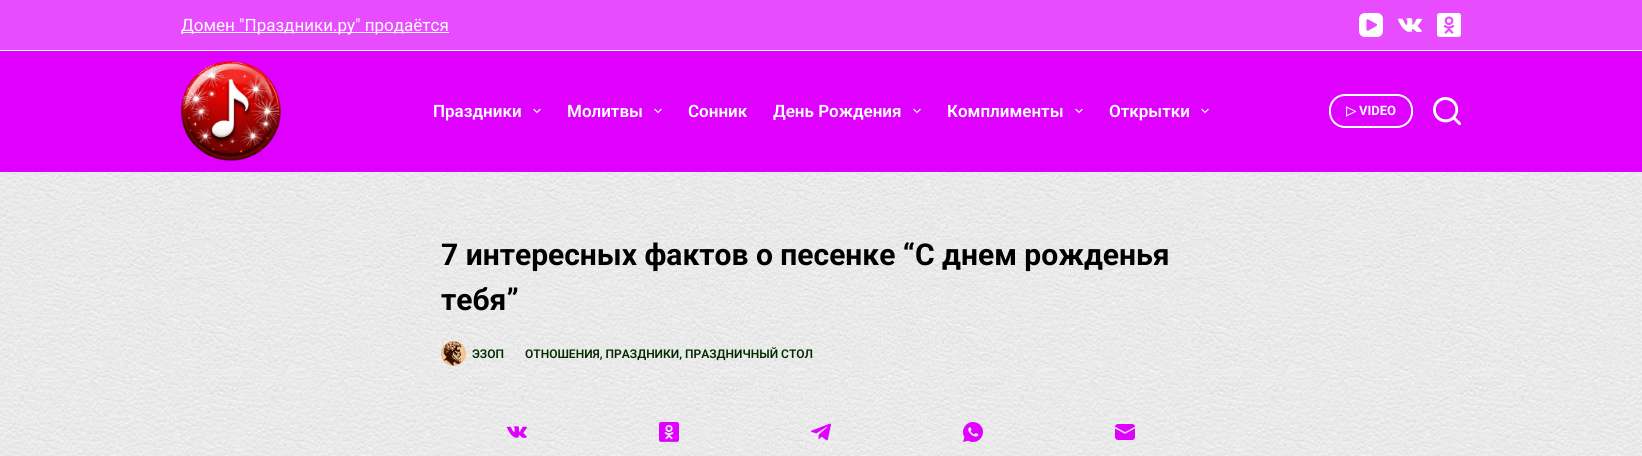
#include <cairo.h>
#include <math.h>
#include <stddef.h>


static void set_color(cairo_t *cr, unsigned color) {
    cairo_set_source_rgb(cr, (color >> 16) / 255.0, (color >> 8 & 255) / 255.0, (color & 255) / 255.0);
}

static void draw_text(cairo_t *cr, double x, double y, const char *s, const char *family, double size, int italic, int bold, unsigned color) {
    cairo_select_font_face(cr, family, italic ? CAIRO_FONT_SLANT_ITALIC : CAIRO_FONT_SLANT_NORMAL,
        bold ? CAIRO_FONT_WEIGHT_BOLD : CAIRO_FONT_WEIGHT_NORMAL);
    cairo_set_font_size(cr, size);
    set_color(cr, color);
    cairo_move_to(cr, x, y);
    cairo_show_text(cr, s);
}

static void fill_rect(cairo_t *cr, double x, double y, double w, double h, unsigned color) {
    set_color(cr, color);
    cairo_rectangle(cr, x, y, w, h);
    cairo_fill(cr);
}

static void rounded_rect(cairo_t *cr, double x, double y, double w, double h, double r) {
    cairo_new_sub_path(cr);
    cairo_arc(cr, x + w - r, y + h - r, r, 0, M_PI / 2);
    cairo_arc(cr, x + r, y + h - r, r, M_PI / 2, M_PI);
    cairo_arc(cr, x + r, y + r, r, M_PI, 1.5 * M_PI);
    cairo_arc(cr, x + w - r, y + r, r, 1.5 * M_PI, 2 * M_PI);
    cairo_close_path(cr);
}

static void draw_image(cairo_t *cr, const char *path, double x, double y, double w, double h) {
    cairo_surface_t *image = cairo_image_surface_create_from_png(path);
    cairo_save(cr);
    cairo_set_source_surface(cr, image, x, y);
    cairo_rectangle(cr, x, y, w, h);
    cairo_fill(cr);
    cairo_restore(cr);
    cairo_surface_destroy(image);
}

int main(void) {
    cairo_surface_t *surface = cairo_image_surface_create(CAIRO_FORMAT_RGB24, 1642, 456);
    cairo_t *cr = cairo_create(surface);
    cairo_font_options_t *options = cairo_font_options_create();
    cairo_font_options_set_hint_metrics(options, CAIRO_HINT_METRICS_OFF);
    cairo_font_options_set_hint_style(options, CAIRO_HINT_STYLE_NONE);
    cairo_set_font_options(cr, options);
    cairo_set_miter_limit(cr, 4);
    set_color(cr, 0xFFFFFF);
    cairo_paint(cr);
    draw_image(cr, "assets/img1.png", 0, 172, 1642, 284);
    fill_rect(cr, 0, 0, 1642, 50, 0xE74CFF);
    fill_rect(cr, 181, 32, 268, 1, 0xFFFFFF);
    draw_text(cr, 181, 31, "Домен \"Праздники.ру\" продаётся", "Roboto", 17, 0, 0, 0xFFFFFF);
    draw_image(cr, "assets/img2.png", 1359, 13, 24, 24);
    draw_image(cr, "assets/img3.png", 1398, 18, 24, 14);
    draw_image(cr, "assets/img4.png", 1437, 13, 24, 24);
    fill_rect(cr, 0, 51, 1642, 121, 0xDF00FF);
    draw_image(cr, "assets/img5.png", 181, 61, 100, 100);
    draw_text(cr, 433, 117, "Праздники", "Roboto SemiBold", 17, 0, 0, 0xFFFFFF);
    draw_image(cr, "assets/img6.png", 533, 108, 8, 6);
    draw_text(cr, 567, 117, "Молитвы", "Roboto SemiBold", 17, 0, 0, 0xFFFFFF);
    draw_image(cr, "assets/img6.png", 654, 108, 8, 6);
    draw_text(cr, 688, 117, "Сонник", "Roboto SemiBold", 17, 0, 0, 0xFFFFFF);
    draw_text(cr, 773, 117, "День Рождения", "Roboto SemiBold", 17, 0, 0, 0xFFFFFF);
    draw_image(cr, "assets/img6.png", 913, 108, 8, 6);
    draw_text(cr, 947, 117, "Комплименты", "Roboto SemiBold", 17, 0, 0, 0xFFFFFF);
    draw_image(cr, "assets/img6.png", 1075, 108, 8, 6);
    draw_text(cr, 1109, 117, "Открытки", "Roboto SemiBold", 17, 0, 0, 0xFFFFFF);
    draw_image(cr, "assets/img6.png", 1201, 108, 8, 6);
    rounded_rect(cr, 1330, 95, 82, 32, 15);
    cairo_stroke(cr);
    draw_text(cr, 1346, 115, "▷", "DejaVu Sans", 13, 0, 1, 0xFFFFFF);
    draw_text(cr, 1359, 115, "VIDEO", "Roboto", 13, 0, 1, 0xFFFFFF);
    draw_image(cr, "assets/img7.png", 1433, 97, 28, 28);
    draw_text(cr, 441, 265, "7 интересных фактов о песенке “С днем рожденья", "Roboto", 30, 0, 1, 0x000000);
    draw_text(cr, 441, 310, "тебя”", "Roboto", 30, 0, 1, 0x000000);
    draw_image(cr, "assets/img8.png", 441, 341, 25, 25);
    draw_text(cr, 472, 358, "ЭЗОП", "Roboto SemiBold", 12, 0, 0, 0x022B00);
    draw_text(cr, 525, 358, "ОТНОШЕНИЯ, ПРАЗДНИКИ, ПРАЗДНИЧНЫЙ СТОЛ", "Roboto SemiBold", 12, 0, 0, 0x022B00);
    draw_image(cr, "assets/img9.png", 507, 426, 20, 12);
    draw_image(cr, "assets/img10.png", 659, 422, 20, 20);
    draw_image(cr, "assets/img11.png", 811, 423, 20, 18);
    draw_image(cr, "assets/img12.png", 963, 422, 20, 20);
    draw_image(cr, "assets/img13.png", 1115, 424, 20, 16);
    cairo_surface_write_to_png(surface, "output.png");
    cairo_font_options_destroy(options);
    cairo_destroy(cr);
    cairo_surface_destroy(surface);
    return 0;
}
